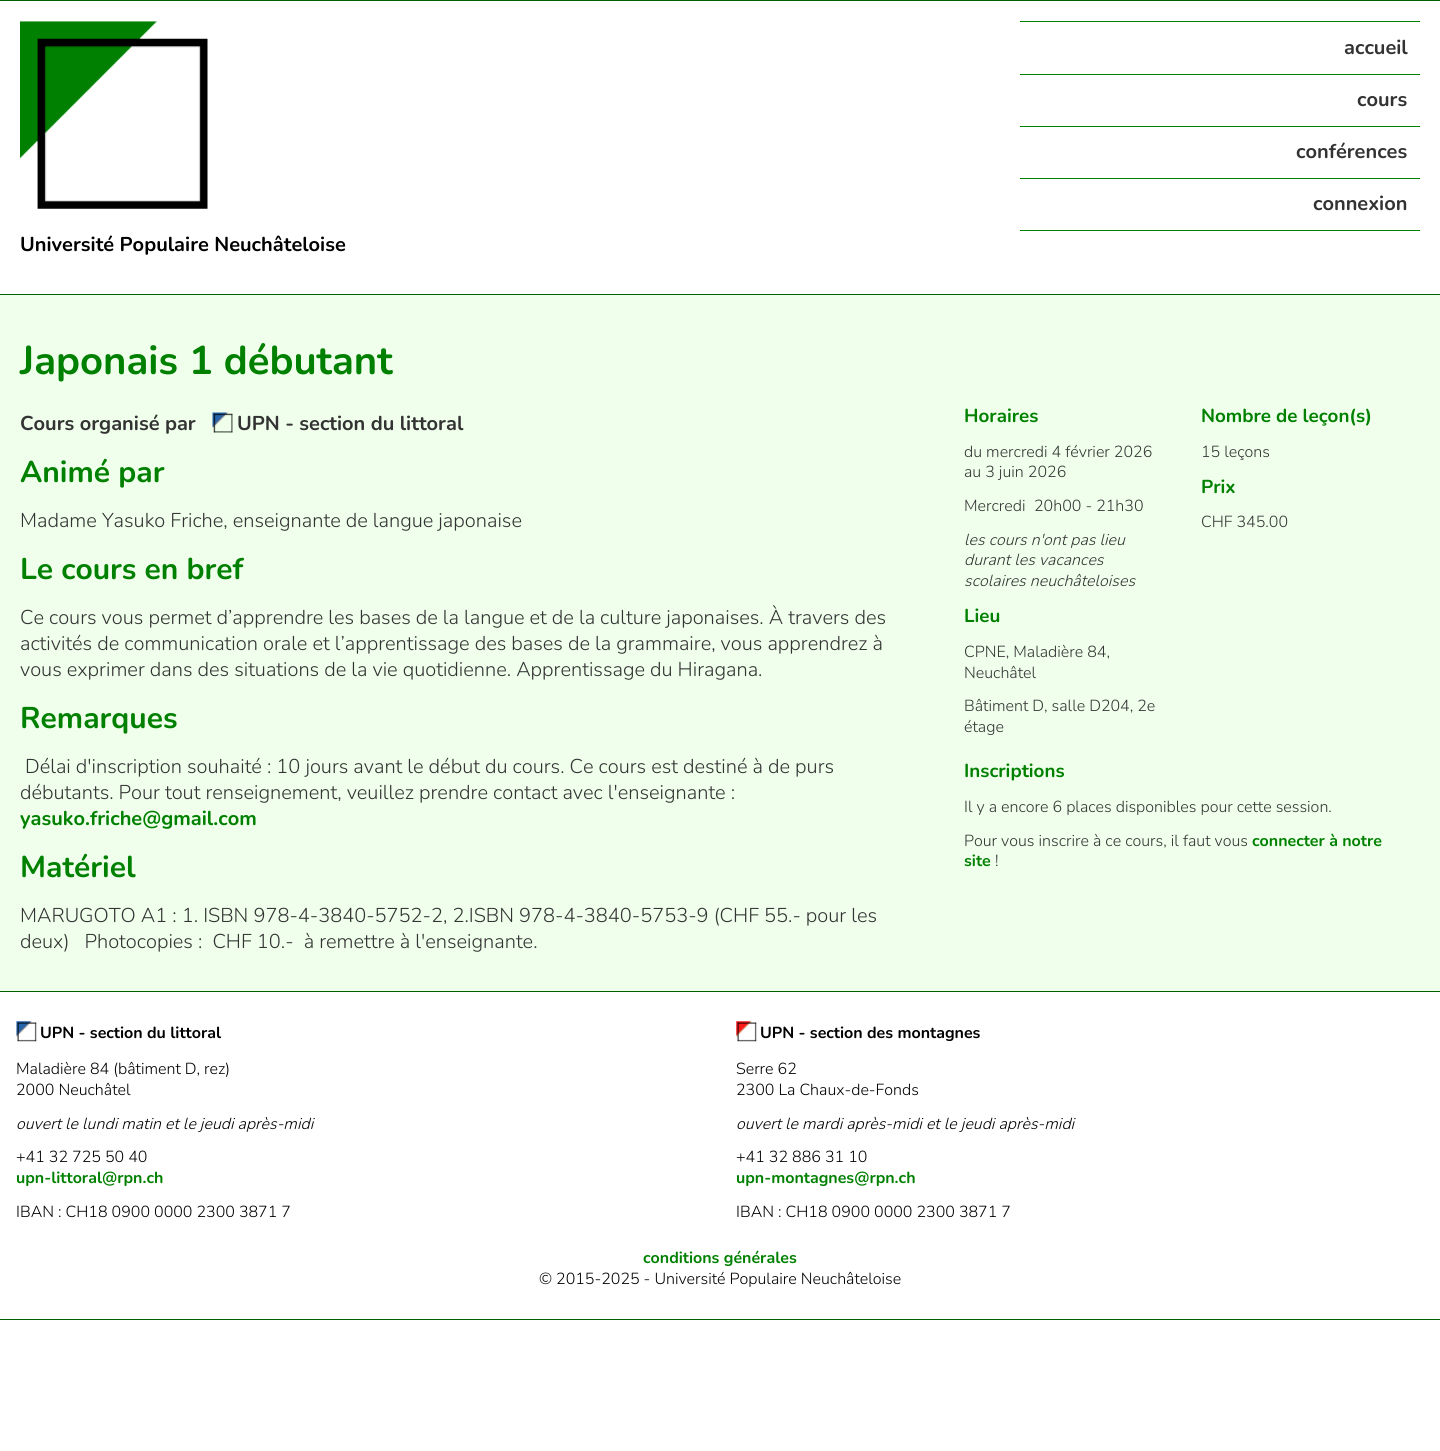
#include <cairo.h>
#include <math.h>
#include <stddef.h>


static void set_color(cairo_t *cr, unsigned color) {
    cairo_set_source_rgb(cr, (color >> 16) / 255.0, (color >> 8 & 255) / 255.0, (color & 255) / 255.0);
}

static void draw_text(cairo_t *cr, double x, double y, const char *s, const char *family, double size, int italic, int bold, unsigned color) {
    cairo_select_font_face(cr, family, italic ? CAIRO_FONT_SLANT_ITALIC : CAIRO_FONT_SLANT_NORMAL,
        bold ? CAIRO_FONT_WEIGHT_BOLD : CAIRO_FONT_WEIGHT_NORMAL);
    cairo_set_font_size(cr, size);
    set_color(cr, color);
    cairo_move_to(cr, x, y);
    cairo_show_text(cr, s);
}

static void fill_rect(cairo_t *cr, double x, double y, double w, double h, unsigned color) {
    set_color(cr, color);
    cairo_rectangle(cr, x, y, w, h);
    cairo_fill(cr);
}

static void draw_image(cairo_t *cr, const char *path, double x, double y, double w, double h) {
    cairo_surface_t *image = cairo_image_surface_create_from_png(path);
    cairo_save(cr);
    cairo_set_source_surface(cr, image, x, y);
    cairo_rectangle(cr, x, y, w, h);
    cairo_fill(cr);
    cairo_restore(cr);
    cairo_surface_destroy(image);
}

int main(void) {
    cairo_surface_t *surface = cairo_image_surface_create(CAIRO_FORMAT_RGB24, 1440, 1451);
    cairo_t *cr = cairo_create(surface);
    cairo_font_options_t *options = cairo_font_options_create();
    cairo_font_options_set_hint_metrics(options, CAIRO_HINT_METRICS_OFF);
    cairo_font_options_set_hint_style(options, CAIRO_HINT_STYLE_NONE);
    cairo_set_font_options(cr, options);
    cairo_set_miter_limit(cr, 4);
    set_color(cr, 0xFFFFFF);
    cairo_paint(cr);
    fill_rect(cr, 0, 0, 1440, 1, 0x006000);
    fill_rect(cr, 0, 294, 1440, 1, 0x006000);
    fill_rect(cr, 1020, 21, 400, 1, 0x008000);
    fill_rect(cr, 1020, 74, 400, 1, 0x008000);
    draw_text(cr, 1344, 54, "accueil", "Nunito", 20, 0, 1, 0x333333);
    fill_rect(cr, 1020, 126, 400, 1, 0x008000);
    draw_text(cr, 1357, 106, "cours", "Nunito", 20, 0, 1, 0x333333);
    fill_rect(cr, 1020, 178, 400, 1, 0x008000);
    draw_text(cr, 1296, 158, "conférences", "Nunito", 20, 0, 1, 0x333333);
    fill_rect(cr, 1020, 230, 400, 1, 0x008000);
    draw_text(cr, 1313, 210, "connexion", "Nunito", 20, 0, 1, 0x333333);
    draw_image(cr, "assets/img1.png", 20, 21, 188, 188);
    draw_text(cr, 20, 251, "Université Populaire Neuchâteloise", "Nunito", 20, 0, 1, 0x000000);
    fill_rect(cr, 0, 295, 1440, 696, 0xEFFFEB);
    draw_text(cr, 20, 374, "Japonais 1 débutant", "Nunito", 40, 0, 1, 0x008000);
    draw_text(cr, 20, 430, "Cours organisé par", "Nunito", 20, 0, 1, 0x333333);
    draw_image(cr, "assets/img2.png", 212, 412, 21, 21);
    draw_text(cr, 237, 430, "UPN - section du littoral", "Nunito", 20, 0, 1, 0x333333);
    draw_text(cr, 20, 482, "Animé par", "Nunito", 30, 0, 1, 0x008000);
    draw_text(cr, 20, 527, "Madame Yasuko Friche, enseignante de langue japonaise", "Nunito Light", 20, 0, 0, 0x333333);
    draw_text(cr, 20, 579, "Le cours en bref", "Nunito", 30, 0, 1, 0x008000);
    draw_text(cr, 20, 624, "Ce cours vous permet d’apprendre les bases de la langue et de la culture japonaises. À travers des", "Nunito Light", 20, 0, 0, 0x333333);
    draw_text(cr, 20, 650, "activités de communication orale et l’apprentissage des bases de la grammaire, vous apprendrez à", "Nunito Light", 20, 0, 0, 0x333333);
    draw_text(cr, 20, 676, "vous exprimer dans des situations de la vie quotidienne. Apprentissage du Hiragana.", "Nunito Light", 20, 0, 0, 0x333333);
    draw_text(cr, 20, 728, "Remarques", "Nunito", 30, 0, 1, 0x008000);
    draw_text(cr, 25, 773, "Délai d'inscription souhaité : 10 jours avant le début du cours. Ce cours est destiné à de purs", "Nunito Light", 20, 0, 0, 0x333333);
    draw_text(cr, 20, 799, "débutants. Pour tout renseignement, veuillez prendre contact avec l'enseignante :", "Nunito Light", 20, 0, 0, 0x333333);
    draw_text(cr, 20, 825, "yasuko.friche@gmail.com", "Nunito", 20, 0, 1, 0x008000);
    draw_text(cr, 20, 877, "Matériel", "Nunito", 30, 0, 1, 0x008000);
    draw_text(cr, 20, 922, "MARUGOTO A1 : 1. ISBN 978-4-3840-5752-2, 2.ISBN 978-4-3840-5753-9 (CHF 55.- pour les", "Nunito Light", 20, 0, 0, 0x333333);
    draw_text(cr, 20, 948, "deux)   Photocopies :  CHF 10.-  à remettre à l'enseignante.", "Nunito Light", 20, 0, 0, 0x333333);
    draw_text(cr, 964, 422, "Horaires", "Nunito", 18.75, 0, 1, 0x008000);
    draw_text(cr, 964, 457, "du mercredi 4 février 2026", "Nunito Light", 16, 0, 0, 0x333333);
    draw_text(cr, 964, 477, "au 3 juin 2026", "Nunito Light", 16, 0, 0, 0x333333);
    draw_text(cr, 964, 511, "Mercredi", "Nunito Light", 16, 0, 0, 0x333333);
    draw_text(cr, 1034, 511, "20h00 - 21h30", "Nunito Light", 16, 0, 0, 0x333333);
    draw_text(cr, 964, 545, "les cours n'ont pas lieu", "Nunito Light", 16, 1, 0, 0x333333);
    draw_text(cr, 964, 565, "durant les vacances", "Nunito Light", 16, 1, 0, 0x333333);
    draw_text(cr, 964, 586, "scolaires neuchâteloises", "Nunito Light", 16, 1, 0, 0x333333);
    draw_text(cr, 964, 622, "Lieu", "Nunito", 18.75, 0, 1, 0x008000);
    draw_text(cr, 964, 657, "CPNE, Maladière 84,", "Nunito Light", 16, 0, 0, 0x333333);
    draw_text(cr, 964, 678, "Neuchâtel", "Nunito Light", 16, 0, 0, 0x333333);
    draw_text(cr, 964, 711, "Bâtiment D, salle D204, 2e", "Nunito Light", 16, 0, 0, 0x333333);
    draw_text(cr, 964, 732, "étage", "Nunito Light", 16, 0, 0, 0x333333);
    draw_text(cr, 1201, 422, "Nombre de leçon(s)", "Nunito", 18.75, 0, 1, 0x008000);
    draw_text(cr, 1201, 457, "15 leçons", "Nunito Light", 16, 0, 0, 0x333333);
    draw_text(cr, 1201, 493, "Prix", "Nunito", 18.75, 0, 1, 0x008000);
    draw_text(cr, 1201, 527, "CHF 345.00", "Nunito Light", 16, 0, 0, 0x333333);
    draw_text(cr, 964, 777, "Inscriptions", "Nunito", 18.75, 0, 1, 0x008000);
    draw_text(cr, 964, 812, "Il y a encore 6 places disponibles pour cette session.", "Nunito Light", 16, 0, 0, 0x333333);
    draw_text(cr, 964, 846, "Pour vous inscrire à ce cours, il faut vous", "Nunito Light", 16, 0, 0, 0x333333);
    draw_text(cr, 1252, 846, "connecter à notre", "Nunito", 16, 0, 1, 0x008000);
    draw_text(cr, 964, 866, "site", "Nunito", 16, 0, 1, 0x008000);
    draw_text(cr, 995, 866, "!", "Nunito Light", 16, 0, 0, 0x333333);
    fill_rect(cr, 0, 991, 1440, 1, 0x006000);
    fill_rect(cr, 0, 1319, 1440, 1, 0x006000);
    draw_image(cr, "assets/img3.png", 16, 1021, 21, 21);
    draw_text(cr, 40, 1038, "UPN - section du littoral", "Nunito", 16, 0, 1, 0x000000);
    draw_text(cr, 16, 1074, "Maladière 84 (bâtiment D, rez)", "Nunito Light", 16, 0, 0, 0x000000);
    draw_text(cr, 16, 1095, "2000 Neuchâtel", "Nunito Light", 16, 0, 0, 0x000000);
    draw_text(cr, 16, 1129, "ouvert le lundi matin et le jeudi après-midi", "Nunito Light", 16, 1, 0, 0x000000);
    draw_text(cr, 16, 1162, "+41 32 725 50 40", "Nunito Light", 16, 0, 0, 0x000000);
    draw_text(cr, 16, 1183, "upn-littoral@rpn.ch", "Nunito", 16, 0, 1, 0x008000);
    draw_text(cr, 16, 1217, "IBAN : CH18 0900 0000 2300 3871 7", "Nunito Light", 16, 0, 0, 0x000000);
    draw_image(cr, "assets/img4.png", 736, 1021, 21, 21);
    draw_text(cr, 760, 1038, "UPN - section des montagnes", "Nunito", 16, 0, 1, 0x000000);
    draw_text(cr, 736, 1074, "Serre 62", "Nunito Light", 16, 0, 0, 0x000000);
    draw_text(cr, 736, 1095, "2300 La Chaux-de-Fonds", "Nunito Light", 16, 0, 0, 0x000000);
    draw_text(cr, 736, 1129, "ouvert le mardi après-midi et le jeudi après-midi", "Nunito Light", 16, 1, 0, 0x000000);
    draw_text(cr, 736, 1162, "+41 32 886 31 10", "Nunito Light", 16, 0, 0, 0x000000);
    draw_text(cr, 736, 1183, "upn-montagnes@rpn.ch", "Nunito", 16, 0, 1, 0x008000);
    draw_text(cr, 736, 1217, "IBAN : CH18 0900 0000 2300 3871 7", "Nunito Light", 16, 0, 0, 0x000000);
    draw_text(cr, 643, 1263, "conditions générales", "Nunito", 16, 0, 1, 0x008000);
    draw_text(cr, 539, 1284, "© 2015-2025 - Université Populaire Neuchâteloise", "Nunito Light", 16, 0, 0, 0x000000);
    cairo_surface_write_to_png(surface, "output.png");
    cairo_font_options_destroy(options);
    cairo_destroy(cr);
    cairo_surface_destroy(surface);
    return 0;
}
